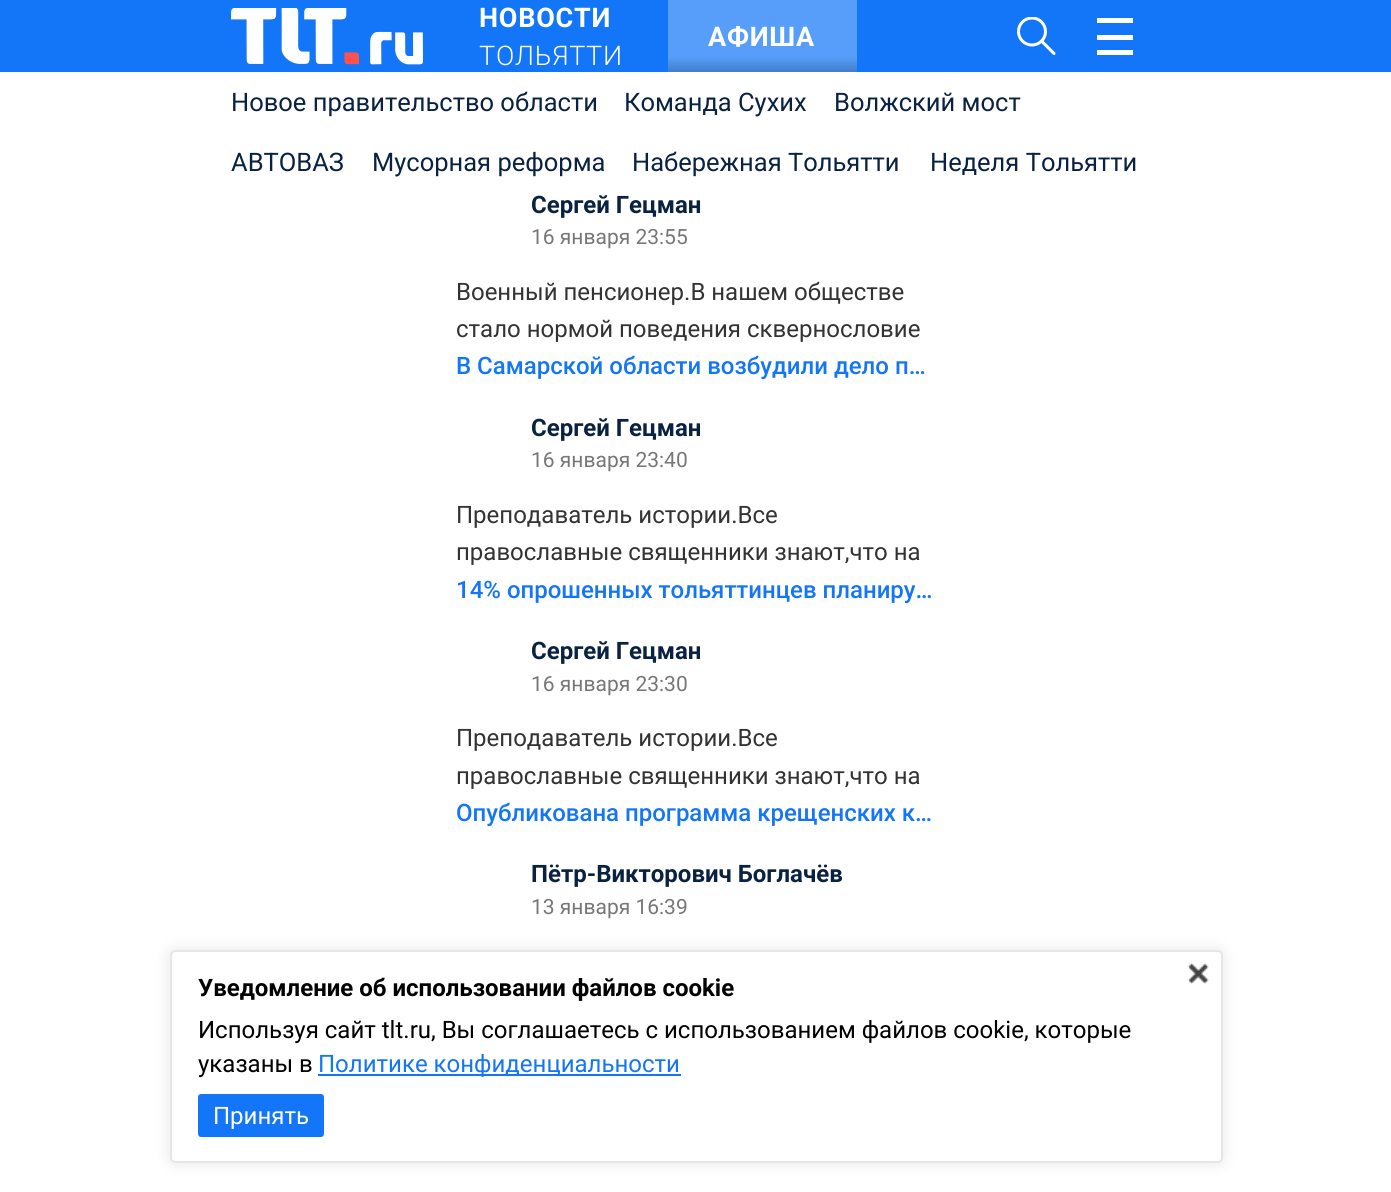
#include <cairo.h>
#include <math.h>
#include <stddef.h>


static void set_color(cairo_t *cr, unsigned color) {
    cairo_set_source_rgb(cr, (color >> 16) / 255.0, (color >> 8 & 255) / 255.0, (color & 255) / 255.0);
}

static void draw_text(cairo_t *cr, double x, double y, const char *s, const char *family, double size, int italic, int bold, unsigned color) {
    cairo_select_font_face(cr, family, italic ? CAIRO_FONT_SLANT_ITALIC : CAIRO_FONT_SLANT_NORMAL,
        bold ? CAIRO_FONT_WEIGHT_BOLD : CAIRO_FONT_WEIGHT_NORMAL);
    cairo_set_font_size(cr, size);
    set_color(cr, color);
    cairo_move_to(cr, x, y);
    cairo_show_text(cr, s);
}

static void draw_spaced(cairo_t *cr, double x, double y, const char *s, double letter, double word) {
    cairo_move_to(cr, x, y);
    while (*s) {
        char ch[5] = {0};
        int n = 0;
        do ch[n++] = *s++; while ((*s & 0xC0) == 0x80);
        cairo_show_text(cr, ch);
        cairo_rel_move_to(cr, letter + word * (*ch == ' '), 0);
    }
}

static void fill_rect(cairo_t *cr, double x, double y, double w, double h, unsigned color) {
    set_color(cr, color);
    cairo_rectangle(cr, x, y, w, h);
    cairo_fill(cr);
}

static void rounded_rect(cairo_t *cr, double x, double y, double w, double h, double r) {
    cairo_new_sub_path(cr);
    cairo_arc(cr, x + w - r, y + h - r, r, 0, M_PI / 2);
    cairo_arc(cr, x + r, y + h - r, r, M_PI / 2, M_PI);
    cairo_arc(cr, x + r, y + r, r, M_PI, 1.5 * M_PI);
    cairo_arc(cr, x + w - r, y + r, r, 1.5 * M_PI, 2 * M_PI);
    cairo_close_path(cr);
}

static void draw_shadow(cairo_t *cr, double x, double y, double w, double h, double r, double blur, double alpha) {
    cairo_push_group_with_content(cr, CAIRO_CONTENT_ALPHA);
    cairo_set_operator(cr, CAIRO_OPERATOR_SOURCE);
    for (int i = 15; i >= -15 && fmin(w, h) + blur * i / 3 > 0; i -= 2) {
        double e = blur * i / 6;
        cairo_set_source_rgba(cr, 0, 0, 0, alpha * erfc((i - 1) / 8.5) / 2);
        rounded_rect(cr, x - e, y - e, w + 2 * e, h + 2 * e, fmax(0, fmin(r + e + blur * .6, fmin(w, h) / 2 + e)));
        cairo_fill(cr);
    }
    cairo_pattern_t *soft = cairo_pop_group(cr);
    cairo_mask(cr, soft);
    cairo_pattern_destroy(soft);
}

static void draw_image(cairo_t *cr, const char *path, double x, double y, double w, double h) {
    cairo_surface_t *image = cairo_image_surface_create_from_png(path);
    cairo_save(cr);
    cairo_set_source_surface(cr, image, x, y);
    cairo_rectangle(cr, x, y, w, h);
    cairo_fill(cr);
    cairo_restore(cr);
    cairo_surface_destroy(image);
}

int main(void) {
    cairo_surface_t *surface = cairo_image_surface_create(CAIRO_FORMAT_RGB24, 1391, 1192);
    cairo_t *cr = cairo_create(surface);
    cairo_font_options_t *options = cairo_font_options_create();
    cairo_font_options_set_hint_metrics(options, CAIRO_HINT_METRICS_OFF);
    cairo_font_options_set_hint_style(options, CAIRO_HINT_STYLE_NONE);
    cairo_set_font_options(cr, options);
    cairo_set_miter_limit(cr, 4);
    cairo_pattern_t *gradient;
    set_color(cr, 0xFFFFFF);
    cairo_paint(cr);
    fill_rect(cr, 0, 0, 1391, 72, 0x1376F8);
    draw_image(cr, "assets/img1.png", 231, 8, 192, 57);
    cairo_select_font_face(cr, "Roboto", CAIRO_FONT_SLANT_NORMAL, CAIRO_FONT_WEIGHT_BOLD);
    cairo_set_font_size(cr, 27);
    set_color(cr, 0xFFFFFF);
    draw_spaced(cr, 479, 27, "НОВОСТИ", 0.75, 0);
    cairo_select_font_face(cr, "Roboto Light", CAIRO_FONT_SLANT_NORMAL, CAIRO_FONT_WEIGHT_NORMAL);
    draw_spaced(cr, 479, 65, "ТОЛЬЯТТИ", 0.75, 0);
    fill_rect(cr, 668, 0, 189, 57, 0x579EFB);
    cairo_select_font_face(cr, "Roboto", CAIRO_FONT_SLANT_NORMAL, CAIRO_FONT_WEIGHT_BOLD);
    set_color(cr, 0xFFFFFF);
    draw_spaced(cr, 708, 46, "АФИША", 0.75, 0);
    gradient = cairo_pattern_create_linear(762, 72, 762, 57);
    cairo_pattern_add_color_stop_rgba(gradient, 0.09, 0.267, 0.498, 0.804, 1);
    cairo_pattern_add_color_stop_rgba(gradient, 1, 0.341, 0.62, 0.984, 1);
    cairo_set_source(cr, gradient);
    cairo_pattern_destroy(gradient);
    cairo_rectangle(cr, 668, 57, 189, 15);
    cairo_fill(cr);
    cairo_save(cr);
    cairo_rectangle(cr, 1017, 17, 39, 39);
    cairo_clip(cr);
    cairo_arc(cr, 1032, 31.5, 13.5, 0, 2 * M_PI);
    set_color(cr, 0xFFFFFF);
    cairo_set_line_width(cr, 3);
    cairo_stroke(cr);
    cairo_restore(cr);
    cairo_new_path(cr);
    cairo_move_to(cr, 1042, 41.5);
    cairo_line_to(cr, 1054, 53.5);
    set_color(cr, 0xFFFFFF);
    cairo_set_line_width(cr, 3);
    cairo_set_line_cap(cr, CAIRO_LINE_CAP_ROUND);
    cairo_stroke(cr);
    fill_rect(cr, 1097, 18, 36, 5, 0xFFFFFF);
    fill_rect(cr, 1097, 35, 36, 5, 0xFFFFFF);
    fill_rect(cr, 1097, 50, 36, 5, 0xFFFFFF);
    draw_text(cr, 231, 111, "Новое правительство области", "Roboto", 25.5, 0, 0, 0x0A2241);
    draw_text(cr, 624, 111, "Команда Сухих", "Roboto", 25.5, 0, 0, 0x0A2241);
    draw_text(cr, 834, 111, "Волжский мост", "Roboto", 25.5, 0, 0, 0x0A2241);
    draw_text(cr, 231, 171, "АВТОВАЗ", "Roboto", 25.5, 0, 0, 0x0A2241);
    draw_text(cr, 372, 171, "Мусорная реформа", "Roboto", 25.5, 0, 0, 0x0A2241);
    draw_text(cr, 632, 171, "Набережная Тольятти", "Roboto", 25.5, 0, 0, 0x0A2241);
    draw_text(cr, 930, 171, "Неделя Тольятти", "Roboto", 25.5, 0, 0, 0x0A2241);
    draw_text(cr, 531, 213, "Сергей Гецман", "Roboto", 24, 0, 1, 0x0A2241);
    draw_text(cr, 531, 244, "16 января 23:55", "Roboto", 21, 0, 0, 0x777777);
    draw_text(cr, 456, 300, "Военный пенсионер.В нашем обществе", "Roboto", 24, 0, 0, 0x333333);
    draw_text(cr, 456, 337, "стало нормой поведения сквернословие", "Roboto", 24, 0, 0, 0x333333);
    draw_text(cr, 456, 374, "В Самарской области возбудили дело п…", "Roboto Medium", 24, 0, 0, 0x1376F8);
    draw_text(cr, 531, 436, "Сергей Гецман", "Roboto", 24, 0, 1, 0x0A2241);
    draw_text(cr, 531, 467, "16 января 23:40", "Roboto", 21, 0, 0, 0x777777);
    draw_text(cr, 456, 523, "Преподаватель истории.Все", "Roboto", 24, 0, 0, 0x333333);
    draw_text(cr, 456, 560, "православные священники знают,что на", "Roboto", 24, 0, 0, 0x333333);
    draw_text(cr, 456, 598, "14% опрошенных тольяттинцев планиру…", "Roboto Medium", 24, 0, 0, 0x1376F8);
    draw_text(cr, 531, 659, "Сергей Гецман", "Roboto", 24, 0, 1, 0x0A2241);
    draw_text(cr, 531, 691, "16 января 23:30", "Roboto", 21, 0, 0, 0x777777);
    draw_text(cr, 456, 746, "Преподаватель истории.Все", "Roboto", 24, 0, 0, 0x333333);
    draw_text(cr, 456, 784, "православные священники знают,что на", "Roboto", 24, 0, 0, 0x333333);
    draw_text(cr, 456, 821, "Опубликована программа крещенских к…", "Roboto Medium", 24, 0, 0, 0x1376F8);
    draw_text(cr, 531, 882, "Пётр-Викторович Боглачёв", "Roboto", 24, 0, 1, 0x0A2241);
    draw_text(cr, 531, 914, "13 января 16:39", "Roboto", 21, 0, 0, 0x777777);
    cairo_save(cr);
    cairo_set_fill_rule(cr, CAIRO_FILL_RULE_EVEN_ODD);
    cairo_new_path(cr);
    cairo_move_to(cr, 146, 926);
    cairo_line_to(cr, 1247, 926);
    cairo_line_to(cr, 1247, 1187);
    cairo_line_to(cr, 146, 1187);
    cairo_close_path(cr);
    cairo_move_to(cr, 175, 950);
    cairo_line_to(cr, 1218, 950);
    cairo_curve_to(cr, 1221, 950, 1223, 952, 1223, 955);
    cairo_line_to(cr, 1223, 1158);
    cairo_curve_to(cr, 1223, 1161, 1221, 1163, 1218, 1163);
    cairo_line_to(cr, 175, 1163);
    cairo_curve_to(cr, 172, 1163, 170, 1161, 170, 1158);
    cairo_line_to(cr, 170, 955);
    cairo_curve_to(cr, 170, 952, 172, 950, 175, 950);
    cairo_close_path(cr);
    cairo_clip(cr);
    set_color(cr, 0x000000);
    draw_shadow(cr, 170, 950, 1053, 213, 5, 7.5, 0.1);
    cairo_restore(cr);
    cairo_set_source_rgba(cr, 1, 1, 1, 0.8);
    rounded_rect(cr, 170, 950, 1053, 213, 5);
    cairo_fill(cr);
    rounded_rect(cr, 171, 951, 1051, 211, 4);
    cairo_set_source_rgba(cr, 0, 0, 0, 0.1);
    cairo_set_line_width(cr, 2);
    cairo_set_line_cap(cr, CAIRO_LINE_CAP_BUTT);
    cairo_stroke(cr);
    draw_image(cr, "assets/img2.png", 1187, 962, 22, 23);
    draw_text(cr, 198, 996, "Уведомление об использовании файлов cookie", "Roboto", 24, 0, 1, 0x000000);
    draw_text(cr, 198, 1038, "Используя сайт tlt.ru, Вы соглашаетесь с использованием файлов cookie, которые", "Roboto", 24, 0, 0, 0x000000);
    draw_text(cr, 198, 1072, "указаны в", "Roboto", 24, 0, 0, 0x000000);
    fill_rect(cr, 318, 1074, 363, 2, 0x1376F8);
    draw_text(cr, 318, 1072, "Политике конфиденциальности", "Roboto", 24, 0, 0, 0x1376F8);
    rounded_rect(cr, 198, 1094, 126, 43, 3);
    cairo_fill(cr);
    draw_text(cr, 213, 1124, "Принять", "Roboto", 24, 0, 0, 0xFFFFFF);
    cairo_surface_write_to_png(surface, "output.png");
    cairo_font_options_destroy(options);
    cairo_destroy(cr);
    cairo_surface_destroy(surface);
    return 0;
}
